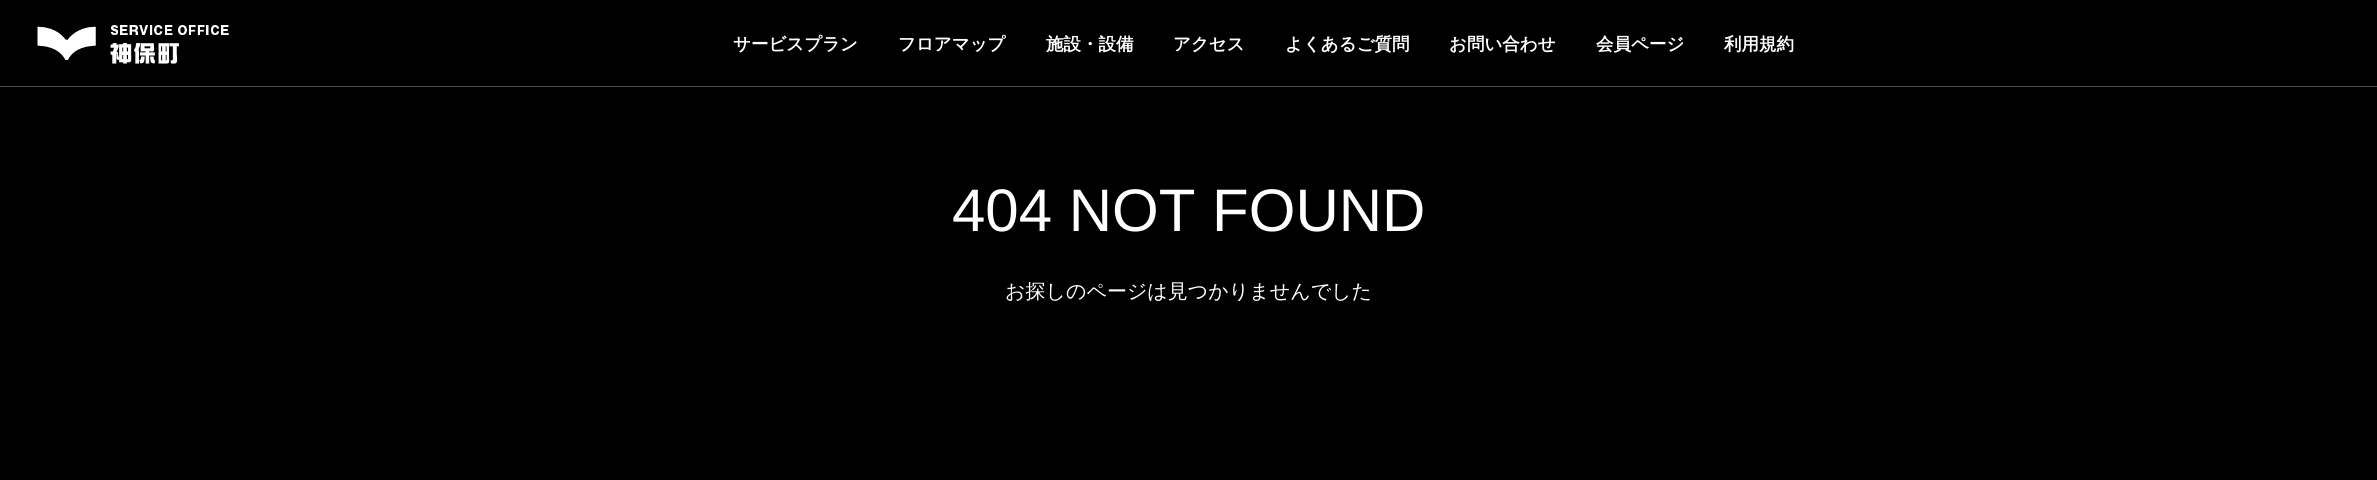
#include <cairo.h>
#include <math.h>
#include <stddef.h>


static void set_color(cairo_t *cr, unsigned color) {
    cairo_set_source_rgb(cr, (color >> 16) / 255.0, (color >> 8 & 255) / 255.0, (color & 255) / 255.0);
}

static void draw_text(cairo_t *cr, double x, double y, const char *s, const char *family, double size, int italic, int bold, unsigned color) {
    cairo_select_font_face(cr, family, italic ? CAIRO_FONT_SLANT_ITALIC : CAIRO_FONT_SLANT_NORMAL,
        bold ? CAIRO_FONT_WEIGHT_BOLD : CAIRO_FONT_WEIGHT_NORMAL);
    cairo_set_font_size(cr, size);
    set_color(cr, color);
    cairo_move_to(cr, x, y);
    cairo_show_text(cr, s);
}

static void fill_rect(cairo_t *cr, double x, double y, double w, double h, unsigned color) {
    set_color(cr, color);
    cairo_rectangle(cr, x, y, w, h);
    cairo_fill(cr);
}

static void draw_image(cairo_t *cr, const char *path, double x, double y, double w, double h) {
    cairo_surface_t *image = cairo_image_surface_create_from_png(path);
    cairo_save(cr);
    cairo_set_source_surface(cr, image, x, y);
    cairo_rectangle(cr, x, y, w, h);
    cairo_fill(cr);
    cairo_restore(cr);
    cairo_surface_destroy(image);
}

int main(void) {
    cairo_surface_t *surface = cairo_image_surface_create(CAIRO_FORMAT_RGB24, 2377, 480);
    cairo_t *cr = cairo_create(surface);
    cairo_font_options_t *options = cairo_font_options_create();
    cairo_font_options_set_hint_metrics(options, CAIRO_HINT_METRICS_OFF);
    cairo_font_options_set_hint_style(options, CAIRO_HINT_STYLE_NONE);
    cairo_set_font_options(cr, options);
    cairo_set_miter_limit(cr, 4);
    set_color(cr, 0x000000);
    cairo_paint(cr);
    fill_rect(cr, 0, 86, 2377, 1, 0x4D4D4D);
    draw_image(cr, "assets/img1.png", 37, 25, 192, 39);
    draw_text(cr, 733, 50, "サービスプラン", "WenQuanYi Zen Hei", 17.5, 0, 1, 0xFFFFFF);
    draw_text(cr, 898, 50, "フロアマップ", "WenQuanYi Zen Hei", 17.5, 0, 1, 0xFFFFFF);
    draw_text(cr, 1046, 50, "施設・設備", "WenQuanYi Zen Hei", 17.5, 0, 1, 0xFFFFFF);
    draw_text(cr, 1173, 50, "アクセス", "WenQuanYi Zen Hei", 17.5, 0, 1, 0xFFFFFF);
    draw_text(cr, 1285, 50, "よくあるご質問", "WenQuanYi Zen Hei", 17.5, 0, 1, 0xFFFFFF);
    draw_text(cr, 1449, 50, "お問い合わせ", "WenQuanYi Zen Hei", 17.5, 0, 1, 0xFFFFFF);
    draw_text(cr, 1596, 50, "会員ページ", "WenQuanYi Zen Hei", 17.5, 0, 1, 0xFFFFFF);
    draw_text(cr, 1724, 50, "利用規約", "WenQuanYi Zen Hei", 17.5, 0, 1, 0xFFFFFF);
    draw_text(cr, 952, 231, "404 NOT FOUND", "Liberation Sans", 60, 0, 0, 0xFFFFFF);
    draw_text(cr, 1005, 298, "お探しのページは見つかりませんでした", "WenQuanYi Zen Hei Medium", 20, 0, 0, 0xFFFFFF);
    cairo_surface_write_to_png(surface, "output.png");
    cairo_font_options_destroy(options);
    cairo_destroy(cr);
    cairo_surface_destroy(surface);
    return 0;
}
